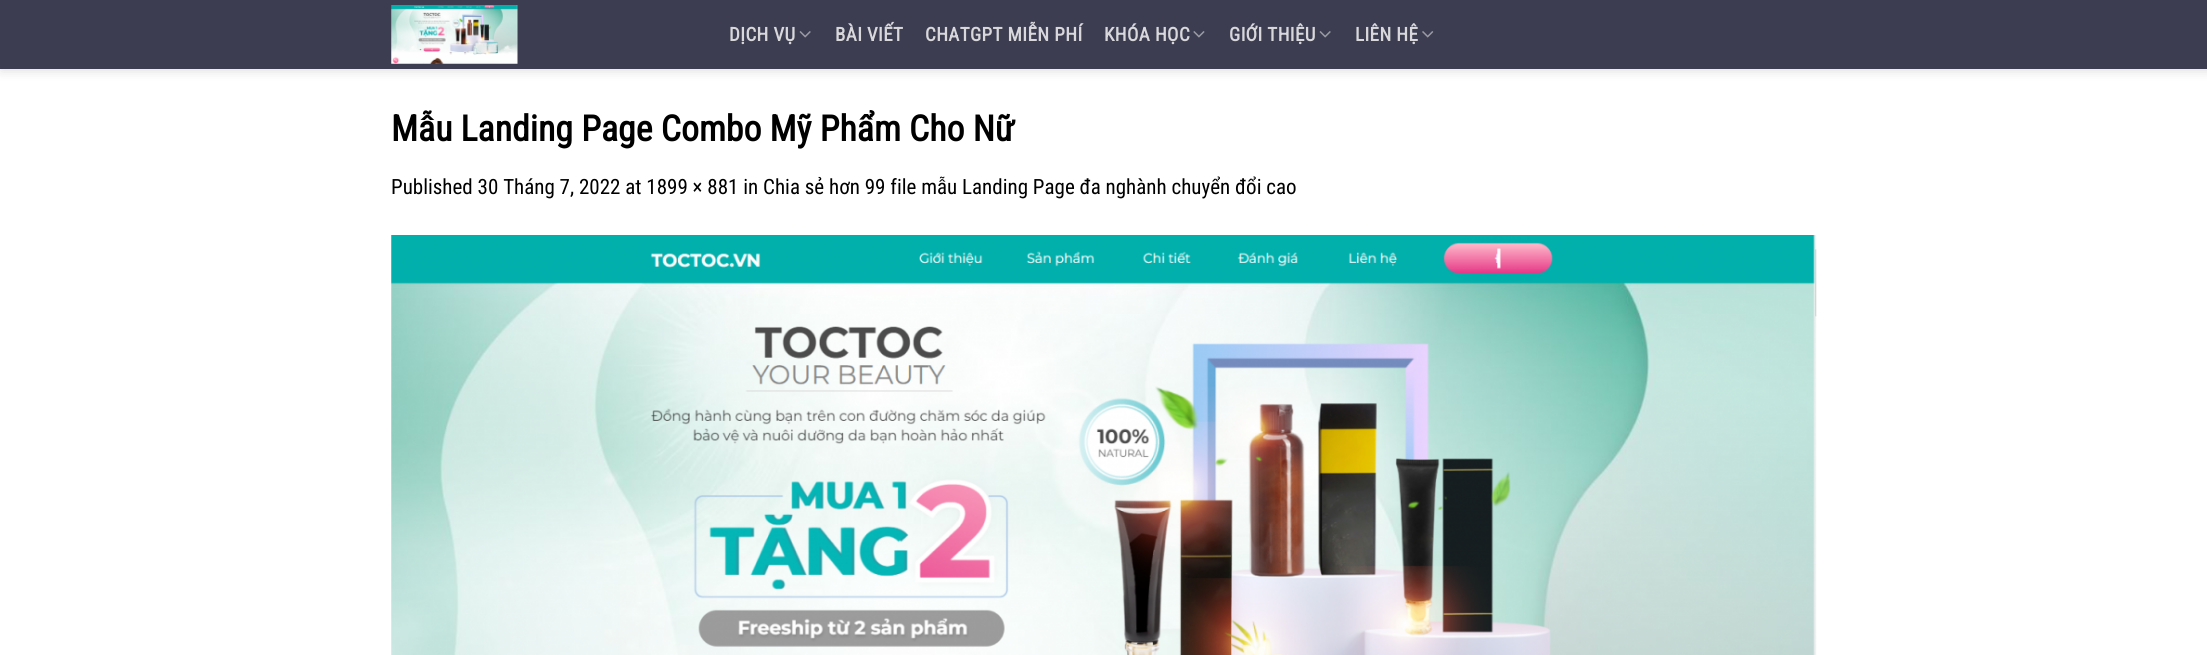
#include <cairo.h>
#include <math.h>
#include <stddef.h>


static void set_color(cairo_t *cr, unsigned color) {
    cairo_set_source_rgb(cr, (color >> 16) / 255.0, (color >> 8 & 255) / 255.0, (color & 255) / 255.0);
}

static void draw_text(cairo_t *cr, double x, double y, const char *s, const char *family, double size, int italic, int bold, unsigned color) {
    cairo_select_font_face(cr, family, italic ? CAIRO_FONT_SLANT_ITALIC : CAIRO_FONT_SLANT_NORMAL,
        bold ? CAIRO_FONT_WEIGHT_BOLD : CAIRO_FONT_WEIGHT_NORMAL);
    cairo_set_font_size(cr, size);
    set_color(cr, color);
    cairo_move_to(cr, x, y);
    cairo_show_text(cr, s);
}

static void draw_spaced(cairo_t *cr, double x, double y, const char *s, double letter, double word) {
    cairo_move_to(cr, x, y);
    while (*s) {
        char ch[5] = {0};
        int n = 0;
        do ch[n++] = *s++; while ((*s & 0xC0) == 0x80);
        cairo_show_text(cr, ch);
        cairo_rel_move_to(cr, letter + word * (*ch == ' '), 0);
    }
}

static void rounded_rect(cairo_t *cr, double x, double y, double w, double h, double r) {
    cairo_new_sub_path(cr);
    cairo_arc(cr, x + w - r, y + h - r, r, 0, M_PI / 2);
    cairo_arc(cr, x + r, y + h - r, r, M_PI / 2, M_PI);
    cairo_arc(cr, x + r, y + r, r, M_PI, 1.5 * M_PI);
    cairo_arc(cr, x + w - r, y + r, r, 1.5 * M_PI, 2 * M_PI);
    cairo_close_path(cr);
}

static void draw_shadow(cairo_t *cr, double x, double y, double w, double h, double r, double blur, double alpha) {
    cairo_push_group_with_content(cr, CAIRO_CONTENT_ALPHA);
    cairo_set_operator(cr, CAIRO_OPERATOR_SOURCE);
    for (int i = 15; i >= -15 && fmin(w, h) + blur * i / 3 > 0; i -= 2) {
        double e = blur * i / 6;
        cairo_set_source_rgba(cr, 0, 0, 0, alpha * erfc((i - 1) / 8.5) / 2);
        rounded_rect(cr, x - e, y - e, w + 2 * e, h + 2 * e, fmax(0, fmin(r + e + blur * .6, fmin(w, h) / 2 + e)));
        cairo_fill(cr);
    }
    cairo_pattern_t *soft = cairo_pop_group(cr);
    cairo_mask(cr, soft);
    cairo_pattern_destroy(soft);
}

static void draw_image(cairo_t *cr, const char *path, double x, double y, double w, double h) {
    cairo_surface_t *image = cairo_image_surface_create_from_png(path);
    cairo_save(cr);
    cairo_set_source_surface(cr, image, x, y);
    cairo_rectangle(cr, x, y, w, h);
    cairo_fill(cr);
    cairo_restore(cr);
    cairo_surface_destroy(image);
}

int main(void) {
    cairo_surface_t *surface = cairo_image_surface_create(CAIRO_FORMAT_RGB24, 2207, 655);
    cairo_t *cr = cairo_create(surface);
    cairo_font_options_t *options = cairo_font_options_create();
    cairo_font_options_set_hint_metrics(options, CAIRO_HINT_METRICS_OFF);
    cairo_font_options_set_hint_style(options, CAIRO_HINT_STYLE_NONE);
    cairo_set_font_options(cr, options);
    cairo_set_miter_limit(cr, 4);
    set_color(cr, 0xFFFFFF);
    cairo_paint(cr);
    cairo_save(cr);
    cairo_set_fill_rule(cr, CAIRO_FILL_RULE_EVEN_ODD);
    cairo_new_path(cr);
    cairo_move_to(cr, 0, 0);
    cairo_line_to(cr, 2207, 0);
    cairo_line_to(cr, 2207, 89);
    cairo_line_to(cr, 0, 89);
    cairo_close_path(cr);
    cairo_move_to(cr, 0, 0);
    cairo_line_to(cr, 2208, 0);
    cairo_line_to(cr, 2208, 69);
    cairo_line_to(cr, 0, 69);
    cairo_close_path(cr);
    cairo_clip(cr);
    set_color(cr, 0x000000);
    draw_shadow(cr, 1, 1, 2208, 69, 0, 6, 0.15);
    cairo_restore(cr);
    cairo_set_source_rgba(cr, 0.118, 0.122, 0.208, 0.86);
    cairo_rectangle(cr, 0, 0, 2207, 69);
    cairo_fill(cr);
    draw_image(cr, "assets/img1.png", 391, 5, 127, 59);
    cairo_select_font_face(cr, "Roboto Condensed", CAIRO_FONT_SLANT_NORMAL, CAIRO_FONT_WEIGHT_BOLD);
    cairo_set_font_size(cr, 19);
    set_color(cr, 0xD8D8DC);
    draw_spaced(cr, 729, 41, "DỊCH VỤ", 0.4, 0);
    draw_image(cr, "assets/img2.png", 799, 31, 12, 7);
    draw_spaced(cr, 835, 41, "BÀI VIẾT", 0.4, 0);
    draw_spaced(cr, 925, 41, "CHATGPT MIỄN PHÍ", 0.4, 0);
    draw_spaced(cr, 1104, 41, "KHÓA HỌC", 0.4, 0);
    draw_image(cr, "assets/img3.png", 1193, 31, 12, 7);
    draw_spaced(cr, 1229, 41, "GIỚI THIỆU", 0.4, 0);
    draw_image(cr, "assets/img2.png", 1319, 31, 12, 7);
    draw_spaced(cr, 1355, 41, "LIÊN HỆ", 0.4, 0);
    draw_image(cr, "assets/img4.png", 1422, 31, 12, 7);
    draw_text(cr, 391, 141, "Mẫu Landing Page Combo Mỹ Phẩm Cho Nữ", "Roboto Condensed", 35.75, 0, 1, 0x000000);
    draw_text(cr, 391, 194, "Published 30 Tháng 7, 2022 at 1899 × 881 in Chia sẻ hơn 99 file mẫu Landing Page đa nghành chuyển đổi cao", "Roboto Condensed", 21, 0, 0, 0x000000);
    draw_image(cr, "assets/img5.png", 391, 235, 1426, 420);
    cairo_surface_write_to_png(surface, "output.png");
    cairo_font_options_destroy(options);
    cairo_destroy(cr);
    cairo_surface_destroy(surface);
    return 0;
}
